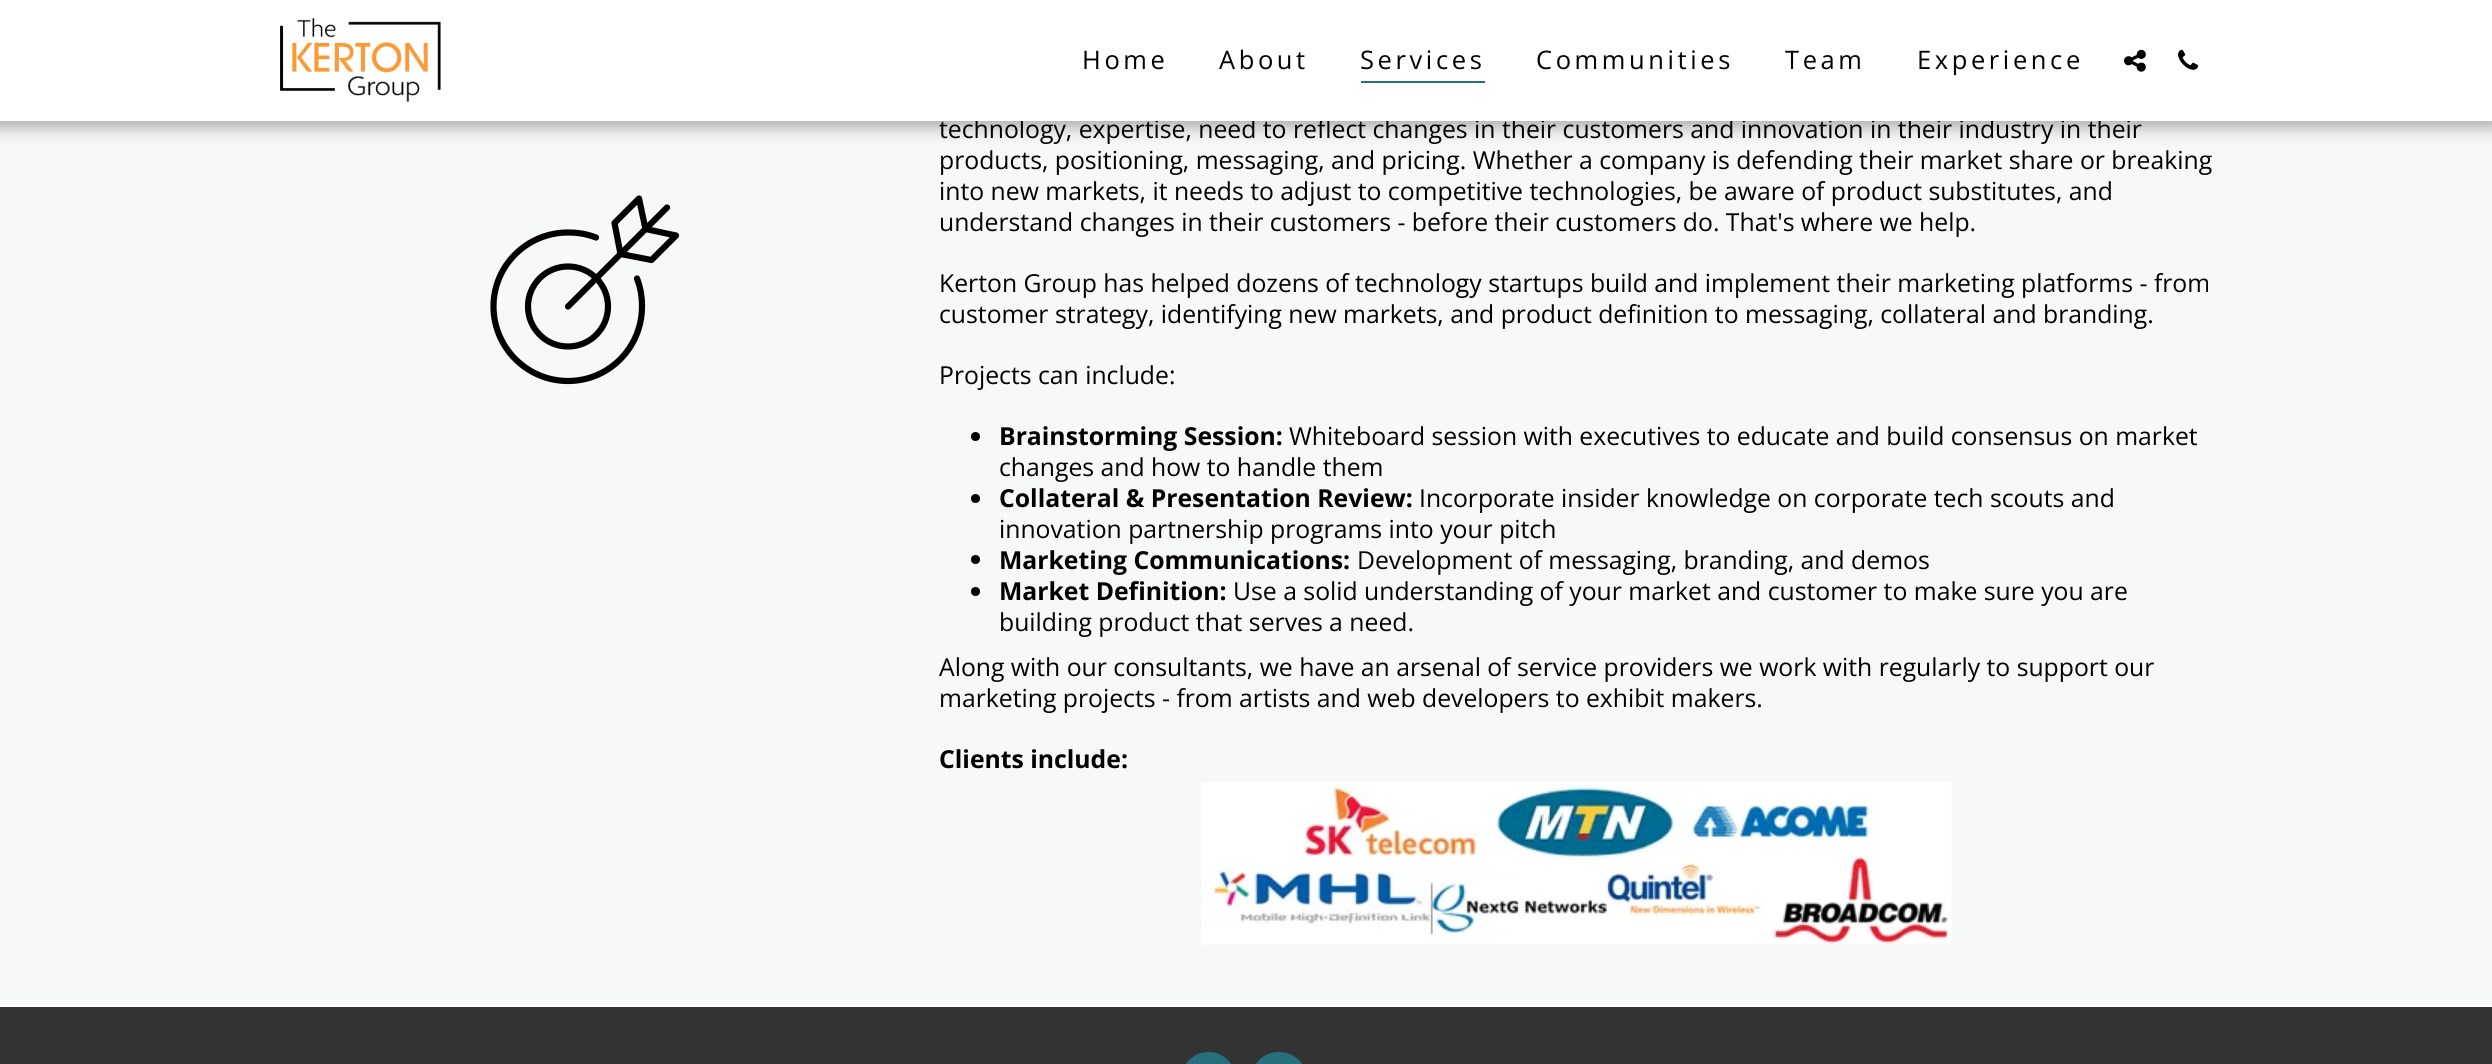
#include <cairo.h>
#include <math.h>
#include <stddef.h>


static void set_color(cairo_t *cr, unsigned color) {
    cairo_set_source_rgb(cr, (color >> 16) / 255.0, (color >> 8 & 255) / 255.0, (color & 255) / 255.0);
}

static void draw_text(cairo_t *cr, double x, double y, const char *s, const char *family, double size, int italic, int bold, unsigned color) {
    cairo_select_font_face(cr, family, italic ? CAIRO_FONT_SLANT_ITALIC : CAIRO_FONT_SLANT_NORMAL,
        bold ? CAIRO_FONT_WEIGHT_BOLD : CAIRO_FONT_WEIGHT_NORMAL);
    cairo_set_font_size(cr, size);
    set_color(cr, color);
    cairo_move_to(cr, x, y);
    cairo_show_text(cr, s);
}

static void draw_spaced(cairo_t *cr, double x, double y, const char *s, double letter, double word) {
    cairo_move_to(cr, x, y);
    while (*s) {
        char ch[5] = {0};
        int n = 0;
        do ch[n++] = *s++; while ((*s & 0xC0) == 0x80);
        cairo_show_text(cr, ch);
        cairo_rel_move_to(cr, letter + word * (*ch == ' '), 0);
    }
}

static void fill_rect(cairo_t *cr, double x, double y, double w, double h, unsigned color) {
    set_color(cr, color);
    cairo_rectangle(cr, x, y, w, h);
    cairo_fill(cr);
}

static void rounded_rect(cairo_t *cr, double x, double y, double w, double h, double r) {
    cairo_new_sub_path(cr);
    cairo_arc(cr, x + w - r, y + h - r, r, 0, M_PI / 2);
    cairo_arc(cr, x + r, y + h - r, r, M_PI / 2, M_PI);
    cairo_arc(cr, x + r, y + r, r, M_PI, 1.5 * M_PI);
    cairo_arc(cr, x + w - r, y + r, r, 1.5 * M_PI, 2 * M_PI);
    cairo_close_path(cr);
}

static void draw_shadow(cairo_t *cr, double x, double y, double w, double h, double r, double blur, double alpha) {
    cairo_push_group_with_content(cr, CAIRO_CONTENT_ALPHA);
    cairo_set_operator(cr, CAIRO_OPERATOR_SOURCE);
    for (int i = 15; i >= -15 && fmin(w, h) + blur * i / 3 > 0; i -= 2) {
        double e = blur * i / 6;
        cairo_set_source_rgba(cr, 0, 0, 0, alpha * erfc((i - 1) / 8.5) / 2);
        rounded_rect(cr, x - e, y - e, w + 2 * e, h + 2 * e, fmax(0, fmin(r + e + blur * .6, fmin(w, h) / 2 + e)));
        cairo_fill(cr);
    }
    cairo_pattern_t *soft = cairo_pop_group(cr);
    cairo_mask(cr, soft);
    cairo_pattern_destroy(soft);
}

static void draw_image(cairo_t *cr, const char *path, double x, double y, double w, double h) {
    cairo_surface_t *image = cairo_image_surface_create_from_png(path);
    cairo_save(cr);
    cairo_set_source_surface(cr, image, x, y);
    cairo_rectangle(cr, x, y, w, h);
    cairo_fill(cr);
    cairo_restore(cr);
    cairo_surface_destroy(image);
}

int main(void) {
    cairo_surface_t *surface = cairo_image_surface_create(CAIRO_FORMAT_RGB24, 2492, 1064);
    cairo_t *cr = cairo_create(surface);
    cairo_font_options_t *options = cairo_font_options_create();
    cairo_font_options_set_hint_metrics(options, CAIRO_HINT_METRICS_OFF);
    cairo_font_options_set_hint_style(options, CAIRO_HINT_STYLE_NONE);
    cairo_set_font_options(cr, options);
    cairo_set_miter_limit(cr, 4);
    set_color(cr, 0xF7F9F8);
    cairo_paint(cr);
    set_color(cr, 0x000000);
    draw_shadow(cr, -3, 0, 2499, 126, 0, 9, 0.35);
    draw_text(cr, 939, 138, "technology, expertise, need to reflect changes in their customers and innovation in their industry in their", "Open Sans", 24.75, 0, 0, 0x000000);
    fill_rect(cr, 0, 0, 2492, 121, 0xFFFFFF);
    draw_image(cr, "assets/img1.png", 280, 17, 161, 85);
    cairo_set_font_size(cr, 25.5);
    set_color(cr, 0x000000);
    draw_spaced(cr, 1082, 69, "Home", 3.6, 0);
    draw_spaced(cr, 1219, 69, "About", 3.6, 0);
    draw_spaced(cr, 1360, 69, "Services", 3.6, 0);
    fill_rect(cr, 1361, 81, 124, 2, 0x25707B);
    set_color(cr, 0x000000);
    draw_spaced(cr, 1536, 69, "Communities", 3.6, 0);
    draw_spaced(cr, 1785, 69, "Team", 3.6, 0);
    draw_spaced(cr, 1917, 69, "Experience", 3.6, 0);
    draw_image(cr, "assets/img2.png", 2124, 49, 22, 23);
    draw_image(cr, "assets/img3.png", 2178, 49, 20, 21);
    cairo_new_path(cr);
    cairo_move_to(cr, 637, 278.5);
    cairo_curve_to(cr, 640.5, 287.5, 642, 296.5, 642, 306.5);
    cairo_curve_to(cr, 642, 347.5, 609, 381, 568, 381);
    cairo_curve_to(cr, 527, 381, 493.5, 347.5, 493.5, 306.5);
    cairo_curve_to(cr, 493.5, 265.5, 527, 232.5, 568, 232.5);
    cairo_curve_to(cr, 578, 232.5, 587, 234, 596, 237.5);
    cairo_set_line_width(cr, 6.2);
    cairo_set_line_cap(cr, CAIRO_LINE_CAP_ROUND);
    cairo_set_line_join(cr, CAIRO_LINE_JOIN_ROUND);
    cairo_stroke(cr);
    cairo_arc(cr, 568, 306.5, 40, 0, 2 * M_PI);
    cairo_set_line_cap(cr, CAIRO_LINE_CAP_BUTT);
    cairo_set_line_join(cr, CAIRO_LINE_JOIN_MITER);
    cairo_stroke(cr);
    cairo_new_path(cr);
    cairo_move_to(cr, 568, 306.5);
    cairo_line_to(cr, 667, 207.5);
    cairo_set_line_cap(cr, CAIRO_LINE_CAP_ROUND);
    cairo_set_line_join(cr, CAIRO_LINE_JOIN_ROUND);
    cairo_stroke(cr);
    cairo_new_path(cr);
    cairo_move_to(cr, 645.5, 229);
    cairo_line_to(cr, 639, 198.5);
    cairo_line_to(cr, 614.5, 223);
    cairo_line_to(cr, 620.5, 254);
    cairo_line_to(cr, 651.5, 260);
    cairo_line_to(cr, 676, 235.5);
    cairo_close_path(cr);
    cairo_stroke(cr);
    draw_text(cr, 939, 169, "products, positioning, messaging, and pricing. Whether a company is defending their market share or breaking", "Open Sans", 24.75, 0, 0, 0x000000);
    draw_text(cr, 939, 200, "into new markets, it needs to adjust to competitive technologies, be aware of product substitutes, and", "Open Sans", 24.75, 0, 0, 0x000000);
    draw_text(cr, 939, 231, "understand changes in their customers - before their customers do. That's where we help.", "Open Sans", 24.75, 0, 0, 0x000000);
    draw_text(cr, 939, 292, "Kerton Group has helped dozens of technology startups build and implement their marketing platforms - from", "Open Sans", 24.75, 0, 0, 0x000000);
    draw_text(cr, 939, 323, "customer strategy, identifying new markets, and product definition to messaging, collateral and branding.", "Open Sans", 24.75, 0, 0, 0x000000);
    draw_text(cr, 939, 384, "Projects can include:", "Open Sans", 24.75, 0, 0, 0x000000);
    cairo_new_path(cr);
    cairo_arc(cr, 975.5, 436.5, 4.5, 0, 2 * M_PI);
    cairo_fill(cr);
    draw_text(cr, 999, 445, "Brainstorming Session:", "Open Sans", 24.75, 0, 1, 0x000000);
    draw_text(cr, 1289, 445, "Whiteboard session with executives to educate and build consensus on market", "Open Sans", 24.75, 0, 0, 0x000000);
    draw_text(cr, 999, 476, "changes and how to handle them", "Open Sans", 24.75, 0, 0, 0x000000);
    cairo_new_path(cr);
    cairo_arc(cr, 975.5, 498.5, 4.5, 0, 2 * M_PI);
    cairo_fill(cr);
    draw_text(cr, 999, 507, "Collateral & Presentation Review:", "Open Sans", 24.75, 0, 1, 0x000000);
    draw_text(cr, 1419, 507, "Incorporate insider knowledge on corporate tech scouts and", "Open Sans", 24.75, 0, 0, 0x000000);
    draw_text(cr, 999, 538, "innovation partnership programs into your pitch", "Open Sans", 24.75, 0, 0, 0x000000);
    cairo_new_path(cr);
    cairo_arc(cr, 975.5, 559.5, 4.5, 0, 2 * M_PI);
    cairo_fill(cr);
    draw_text(cr, 999, 569, "Marketing Communications:", "Open Sans", 24.75, 0, 1, 0x000000);
    draw_text(cr, 1357, 569, "Development of messaging, branding, and demos", "Open Sans", 24.75, 0, 0, 0x000000);
    cairo_new_path(cr);
    cairo_arc(cr, 975.5, 591.5, 4.5, 0, 2 * M_PI);
    cairo_fill(cr);
    draw_text(cr, 999, 600, "Market Definition:", "Open Sans", 24.75, 0, 1, 0x000000);
    draw_text(cr, 1233, 600, "Use a solid understanding of your market and customer to make sure you are", "Open Sans", 24.75, 0, 0, 0x000000);
    draw_text(cr, 999, 631, "building product that serves a need.", "Open Sans", 24.75, 0, 0, 0x000000);
    draw_text(cr, 939, 676, "Along with our consultants, we have an arsenal of service providers we work with regularly to support our", "Open Sans", 24.75, 0, 0, 0x000000);
    draw_text(cr, 939, 707, "marketing projects - from artists and web developers to exhibit makers.", "Open Sans", 24.75, 0, 0, 0x000000);
    draw_text(cr, 939, 768, "Clients include:", "Open Sans", 24.75, 0, 1, 0x000000);
    draw_image(cr, "assets/img4.png", 1201, 782, 751, 163);
    fill_rect(cr, 0, 1005, 2492, 2, 0xFFFFFF);
    fill_rect(cr, 0, 1007, 2492, 57, 0x333333);
    set_color(cr, 0x25707B);
    rounded_rect(cr, 1182, 1053, 53, 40, 26.5);
    cairo_fill_preserve(cr);
    cairo_set_line_width(cr, 2);
    cairo_set_line_cap(cr, CAIRO_LINE_CAP_BUTT);
    cairo_set_line_join(cr, CAIRO_LINE_JOIN_MITER);
    cairo_stroke(cr);
    rounded_rect(cr, 1252, 1053, 54, 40, 26.5);
    cairo_fill_preserve(cr);
    cairo_stroke(cr);
    cairo_surface_write_to_png(surface, "output.png");
    cairo_font_options_destroy(options);
    cairo_destroy(cr);
    cairo_surface_destroy(surface);
    return 0;
}
